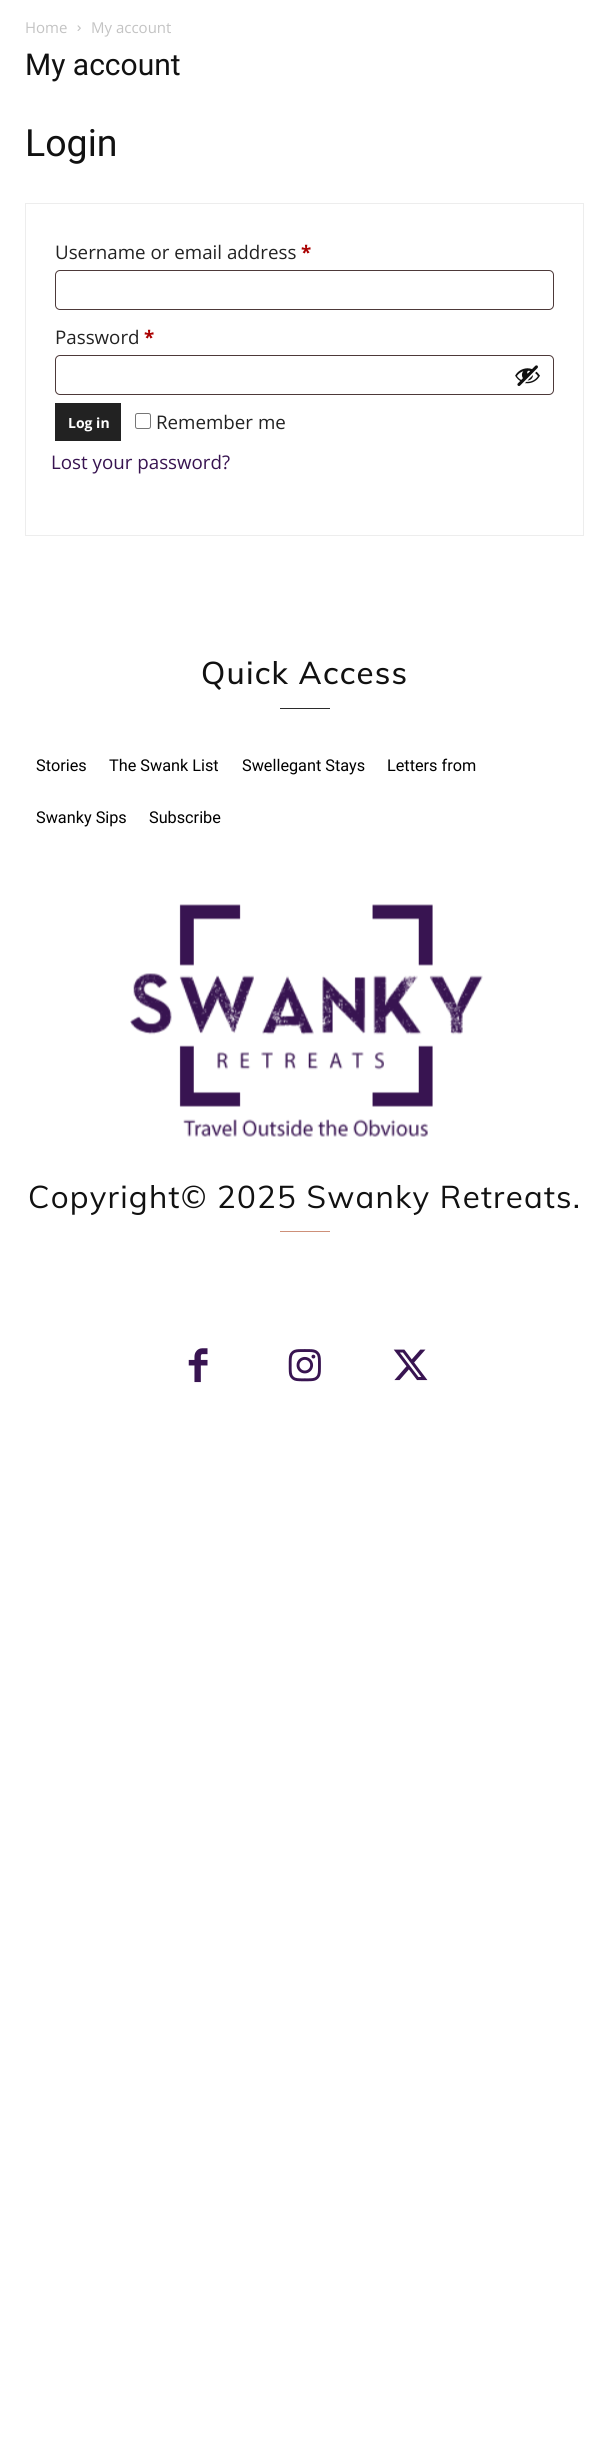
#include <cairo.h>
#include <math.h>
#include <stddef.h>


static void set_color(cairo_t *cr, unsigned color) {
    cairo_set_source_rgb(cr, (color >> 16) / 255.0, (color >> 8 & 255) / 255.0, (color & 255) / 255.0);
}

static void draw_text(cairo_t *cr, double x, double y, const char *s, const char *family, double size, int italic, int bold, unsigned color) {
    cairo_select_font_face(cr, family, italic ? CAIRO_FONT_SLANT_ITALIC : CAIRO_FONT_SLANT_NORMAL,
        bold ? CAIRO_FONT_WEIGHT_BOLD : CAIRO_FONT_WEIGHT_NORMAL);
    cairo_set_font_size(cr, size);
    set_color(cr, color);
    cairo_move_to(cr, x, y);
    cairo_show_text(cr, s);
}

static void draw_spaced(cairo_t *cr, double x, double y, const char *s, double letter, double word) {
    cairo_move_to(cr, x, y);
    while (*s) {
        char ch[5] = {0};
        int n = 0;
        do ch[n++] = *s++; while ((*s & 0xC0) == 0x80);
        cairo_show_text(cr, ch);
        cairo_rel_move_to(cr, letter + word * (*ch == ' '), 0);
    }
}

static void fill_rect(cairo_t *cr, double x, double y, double w, double h, unsigned color) {
    set_color(cr, color);
    cairo_rectangle(cr, x, y, w, h);
    cairo_fill(cr);
}

static void rounded_rect(cairo_t *cr, double x, double y, double w, double h, double r) {
    cairo_new_sub_path(cr);
    cairo_arc(cr, x + w - r, y + h - r, r, 0, M_PI / 2);
    cairo_arc(cr, x + r, y + h - r, r, M_PI / 2, M_PI);
    cairo_arc(cr, x + r, y + r, r, M_PI, 1.5 * M_PI);
    cairo_arc(cr, x + w - r, y + r, r, 1.5 * M_PI, 2 * M_PI);
    cairo_close_path(cr);
}

static void draw_image(cairo_t *cr, const char *path, double x, double y, double w, double h) {
    cairo_surface_t *image = cairo_image_surface_create_from_png(path);
    cairo_save(cr);
    cairo_set_source_surface(cr, image, x, y);
    cairo_rectangle(cr, x, y, w, h);
    cairo_fill(cr);
    cairo_restore(cr);
    cairo_surface_destroy(image);
}

int main(void) {
    cairo_surface_t *surface = cairo_image_surface_create(CAIRO_FORMAT_RGB24, 608, 2453);
    cairo_t *cr = cairo_create(surface);
    cairo_font_options_t *options = cairo_font_options_create();
    cairo_font_options_set_hint_metrics(options, CAIRO_HINT_METRICS_OFF);
    cairo_font_options_set_hint_style(options, CAIRO_HINT_STYLE_NONE);
    cairo_set_font_options(cr, options);
    cairo_set_miter_limit(cr, 4);
    set_color(cr, 0xFFFFFF);
    cairo_paint(cr);
    draw_text(cr, 25, 33, "Home", "Open Sans", 15, 0, 0, 0xC3C3C3);
    draw_image(cr, "assets/img1.png", 77, 25, 4, 6);
    draw_text(cr, 91, 33, "My account", "Open Sans", 15, 0, 0, 0xC3C3C3);
    draw_text(cr, 25, 75, "My account", "Roboto", 30, 0, 0, 0x111111);
    draw_text(cr, 25, 156, "Login", "Roboto", 37.5, 0, 0, 0x111111);
    cairo_rectangle(cr, 25.5, 203.5, 558, 332);
    set_color(cr, 0xEDEDED);
    cairo_set_line_width(cr, 1);
    cairo_stroke(cr);
    draw_text(cr, 55, 259, "Username or email address", "Open Sans", 18.75, 0, 0, 0x222222);
    draw_text(cr, 301, 259, "*", "Open Sans", 18.75, 0, 1, 0xAA0000);
    rounded_rect(cr, 55.5, 270.5, 498, 39, 4.5);
    set_color(cr, 0x4D3939);
    cairo_stroke(cr);
    draw_text(cr, 55, 344, "Password", "Open Sans", 18.75, 0, 0, 0x222222);
    draw_text(cr, 144, 344, "*", "Open Sans", 18.75, 0, 1, 0xAA0000);
    rounded_rect(cr, 55.5, 355.5, 498, 39, 4.5);
    set_color(cr, 0x4D3939);
    cairo_stroke(cr);
    draw_image(cr, "assets/img2.png", 515, 365, 25, 21);
    fill_rect(cr, 55, 403, 66, 38, 0x222222);
    draw_text(cr, 68, 428, "Log in", "Open Sans", 14, 0, 1, 0xFFFFFF);
    rounded_rect(cr, 135.5, 413.5, 15, 15, 2);
    set_color(cr, 0x767676);
    cairo_stroke(cr);
    draw_text(cr, 156, 429, "Remember me", "Open Sans", 18.75, 0, 0, 0x222222);
    draw_text(cr, 51, 469, "Lost your password?", "Open Sans", 18.75, 0, 0, 0x381451);
    cairo_select_font_face(cr, "Muli Medium", CAIRO_FONT_SLANT_NORMAL, CAIRO_FONT_WEIGHT_NORMAL);
    cairo_set_font_size(cr, 31.25);
    set_color(cr, 0x111111);
    draw_spaced(cr, 201, 684, "Quick Access", 1.25, 0);
    fill_rect(cr, 280, 708, 50, 1, 0x2B2B2B);
    draw_text(cr, 36, 771, "Stories", "Roboto", 16.25, 0, 0, 0x000000);
    draw_text(cr, 109, 771, "The Swank List", "Roboto", 16.25, 0, 0, 0x000000);
    draw_text(cr, 242, 771, "Swellegant Stays", "Roboto", 16.25, 0, 0, 0x000000);
    draw_text(cr, 387, 771, "Letters from", "Roboto", 16.25, 0, 0, 0x000000);
    draw_text(cr, 36, 823, "Swanky Sips", "Roboto", 16.25, 0, 0, 0x000000);
    draw_text(cr, 149, 823, "Subscribe", "Roboto", 16.25, 0, 0, 0x000000);
    draw_image(cr, "assets/img3.png", 130, 904, 353, 233);
    cairo_select_font_face(cr, "Muli", CAIRO_FONT_SLANT_NORMAL, CAIRO_FONT_WEIGHT_NORMAL);
    cairo_set_font_size(cr, 31.25);
    set_color(cr, 0x111111);
    draw_spaced(cr, 28, 1208, "Copyright© 2025 Swanky Retreats.", 1.25, 0);
    fill_rect(cr, 280, 1231, 50, 1, 0xCE9079);
    draw_image(cr, "assets/img4.png", 188, 1348, 20, 35);
    draw_image(cr, "assets/img5.png", 288, 1349, 33, 33);
    draw_image(cr, "assets/img6.png", 393, 1349, 35, 32);
    cairo_surface_write_to_png(surface, "output.png");
    cairo_font_options_destroy(options);
    cairo_destroy(cr);
    cairo_surface_destroy(surface);
    return 0;
}
